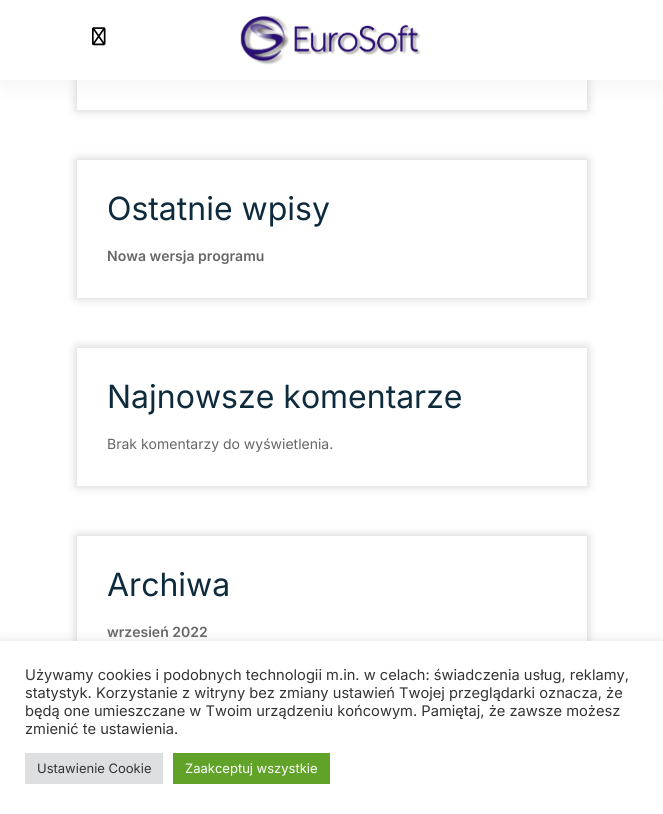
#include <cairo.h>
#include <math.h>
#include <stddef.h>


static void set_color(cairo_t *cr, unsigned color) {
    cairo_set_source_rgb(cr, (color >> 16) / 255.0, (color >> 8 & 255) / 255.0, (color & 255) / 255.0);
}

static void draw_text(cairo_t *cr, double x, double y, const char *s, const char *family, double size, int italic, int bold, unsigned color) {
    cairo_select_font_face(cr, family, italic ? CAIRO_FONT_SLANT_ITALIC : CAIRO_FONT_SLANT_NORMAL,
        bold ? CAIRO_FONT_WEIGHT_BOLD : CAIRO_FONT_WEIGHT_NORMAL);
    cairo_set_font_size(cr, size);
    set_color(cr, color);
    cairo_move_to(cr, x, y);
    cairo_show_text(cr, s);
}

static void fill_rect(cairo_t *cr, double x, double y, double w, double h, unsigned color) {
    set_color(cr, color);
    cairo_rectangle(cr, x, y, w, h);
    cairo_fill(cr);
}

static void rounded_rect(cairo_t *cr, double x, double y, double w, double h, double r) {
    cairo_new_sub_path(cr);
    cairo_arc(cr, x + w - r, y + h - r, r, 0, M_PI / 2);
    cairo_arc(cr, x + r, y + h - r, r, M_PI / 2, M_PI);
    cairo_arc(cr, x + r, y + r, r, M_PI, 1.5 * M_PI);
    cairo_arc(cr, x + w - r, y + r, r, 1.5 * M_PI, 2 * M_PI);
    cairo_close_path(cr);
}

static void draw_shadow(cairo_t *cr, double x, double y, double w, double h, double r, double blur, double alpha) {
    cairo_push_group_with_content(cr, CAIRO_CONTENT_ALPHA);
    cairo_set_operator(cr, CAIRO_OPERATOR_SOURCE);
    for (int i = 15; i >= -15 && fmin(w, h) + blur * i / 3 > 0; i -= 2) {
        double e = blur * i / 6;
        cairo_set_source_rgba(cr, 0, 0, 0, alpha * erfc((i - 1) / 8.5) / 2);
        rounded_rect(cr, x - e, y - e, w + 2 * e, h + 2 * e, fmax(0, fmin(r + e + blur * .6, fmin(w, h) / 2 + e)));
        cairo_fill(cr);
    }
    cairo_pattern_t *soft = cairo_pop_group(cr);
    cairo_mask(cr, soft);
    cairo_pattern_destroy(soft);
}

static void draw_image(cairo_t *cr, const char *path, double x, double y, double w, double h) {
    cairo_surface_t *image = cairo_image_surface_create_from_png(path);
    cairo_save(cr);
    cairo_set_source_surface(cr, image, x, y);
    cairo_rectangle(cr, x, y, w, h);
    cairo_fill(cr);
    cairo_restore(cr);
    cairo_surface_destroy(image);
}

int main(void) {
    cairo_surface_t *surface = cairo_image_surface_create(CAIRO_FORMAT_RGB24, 663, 814);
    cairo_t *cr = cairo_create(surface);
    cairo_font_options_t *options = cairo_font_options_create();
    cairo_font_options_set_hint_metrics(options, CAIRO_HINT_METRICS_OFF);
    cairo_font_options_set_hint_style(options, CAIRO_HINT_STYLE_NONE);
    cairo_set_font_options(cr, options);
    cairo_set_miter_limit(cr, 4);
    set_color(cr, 0xFFFFFF);
    cairo_paint(cr);
    set_color(cr, 0x000000);
    draw_shadow(cr, 0, 8, 663, 80, 0, 12.5, 0.04);
    cairo_save(cr);
    cairo_set_fill_rule(cr, CAIRO_FILL_RULE_EVEN_ODD);
    cairo_new_path(cr);
    cairo_move_to(cr, 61, 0);
    cairo_line_to(cr, 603, 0);
    cairo_line_to(cr, 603, 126);
    cairo_line_to(cr, 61, 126);
    cairo_close_path(cr);
    cairo_move_to(cr, 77, -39);
    cairo_line_to(cr, 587, -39);
    cairo_line_to(cr, 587, 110);
    cairo_line_to(cr, 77, 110);
    cairo_close_path(cr);
    cairo_clip(cr);
    set_color(cr, 0xCCCCCC);
    draw_shadow(cr, 77, -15, 510, 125, 0, 5, 1);
    cairo_restore(cr);
    fill_rect(cr, 0, 0, 663, 80, 0xFFFFFF);
    draw_image(cr, "assets/img1.png", 92, 27, 14, 19);
    draw_image(cr, "assets/img2.png", 240, 15, 181, 50);
    cairo_save(cr);
    cairo_set_fill_rule(cr, CAIRO_FILL_RULE_EVEN_ODD);
    cairo_new_path(cr);
    cairo_move_to(cr, 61, 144);
    cairo_line_to(cr, 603, 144);
    cairo_line_to(cr, 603, 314);
    cairo_line_to(cr, 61, 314);
    cairo_close_path(cr);
    cairo_move_to(cr, 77, 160);
    cairo_line_to(cr, 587, 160);
    cairo_line_to(cr, 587, 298);
    cairo_line_to(cr, 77, 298);
    cairo_close_path(cr);
    cairo_clip(cr);
    set_color(cr, 0xCCCCCC);
    draw_shadow(cr, 77, 160, 510, 138, 0, 5, 1);
    cairo_restore(cr);
    draw_text(cr, 107, 220, "Ostatnie wpisy", "Inter", 32, 0, 0, 0x0E2B3D);
    draw_text(cr, 107, 261, "Nowa wersja programu", "Inter SemiBold", 14, 0, 0, 0x666666);
    cairo_save(cr);
    cairo_set_fill_rule(cr, CAIRO_FILL_RULE_EVEN_ODD);
    cairo_new_path(cr);
    cairo_move_to(cr, 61, 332);
    cairo_line_to(cr, 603, 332);
    cairo_line_to(cr, 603, 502);
    cairo_line_to(cr, 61, 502);
    cairo_close_path(cr);
    cairo_move_to(cr, 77, 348);
    cairo_line_to(cr, 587, 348);
    cairo_line_to(cr, 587, 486);
    cairo_line_to(cr, 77, 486);
    cairo_close_path(cr);
    cairo_clip(cr);
    set_color(cr, 0xCCCCCC);
    draw_shadow(cr, 77, 348, 510, 138, 0, 5, 1);
    cairo_restore(cr);
    draw_text(cr, 107, 408, "Najnowsze komentarze", "Inter", 32, 0, 0, 0x0E2B3D);
    draw_text(cr, 107, 449, "Brak komentarzy do wyświetlenia.", "Inter", 14, 0, 0, 0x666666);
    cairo_save(cr);
    cairo_set_fill_rule(cr, CAIRO_FILL_RULE_EVEN_ODD);
    cairo_new_path(cr);
    cairo_move_to(cr, 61, 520);
    cairo_line_to(cr, 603, 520);
    cairo_line_to(cr, 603, 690);
    cairo_line_to(cr, 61, 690);
    cairo_close_path(cr);
    cairo_move_to(cr, 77, 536);
    cairo_line_to(cr, 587, 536);
    cairo_line_to(cr, 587, 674);
    cairo_line_to(cr, 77, 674);
    cairo_close_path(cr);
    cairo_clip(cr);
    set_color(cr, 0xCCCCCC);
    draw_shadow(cr, 77, 536, 510, 138, 0, 5, 1);
    cairo_restore(cr);
    draw_text(cr, 107, 596, "Archiwa", "Inter", 32, 0, 0, 0x0E2B3D);
    draw_text(cr, 107, 637, "wrzesień 2022", "Inter SemiBold", 14, 0, 0, 0x666666);
    set_color(cr, 0xACABAB);
    draw_shadow(cr, 0, 640, 663, 173, 0, 5, 0.3);
    fill_rect(cr, 0, 641, 663, 173, 0xFFFFFF);
    draw_text(cr, 25, 680, "Używamy cookies i podobnych technologii m.in. w celach: świadczenia usług, reklamy,", "Inter", 14.65, 0, 0, 0x333333);
    draw_text(cr, 25, 698, "statystyk. Korzystanie z witryny bez zmiany ustawień Twojej przeglądarki oznacza, że", "Inter", 14.65, 0, 0, 0x333333);
    draw_text(cr, 25, 716, "będą one umieszczane w Twoim urządzeniu końcowym. Pamiętaj, że zawsze możesz", "Inter", 14.65, 0, 0, 0x333333);
    draw_text(cr, 25, 734, "zmienić te ustawienia.", "Inter", 14.65, 0, 0, 0x333333);
    fill_rect(cr, 25, 753, 138, 31, 0xDEDFE0);
    draw_text(cr, 37, 773, "Ustawienie Cookie", "Inter", 13, 0, 0, 0x333333);
    fill_rect(cr, 173, 753, 157, 31, 0x61A229);
    draw_text(cr, 185, 773, "Zaakceptuj wszystkie", "Inter", 13, 0, 0, 0xFFFFFF);
    cairo_surface_write_to_png(surface, "output.png");
    cairo_font_options_destroy(options);
    cairo_destroy(cr);
    cairo_surface_destroy(surface);
    return 0;
}
